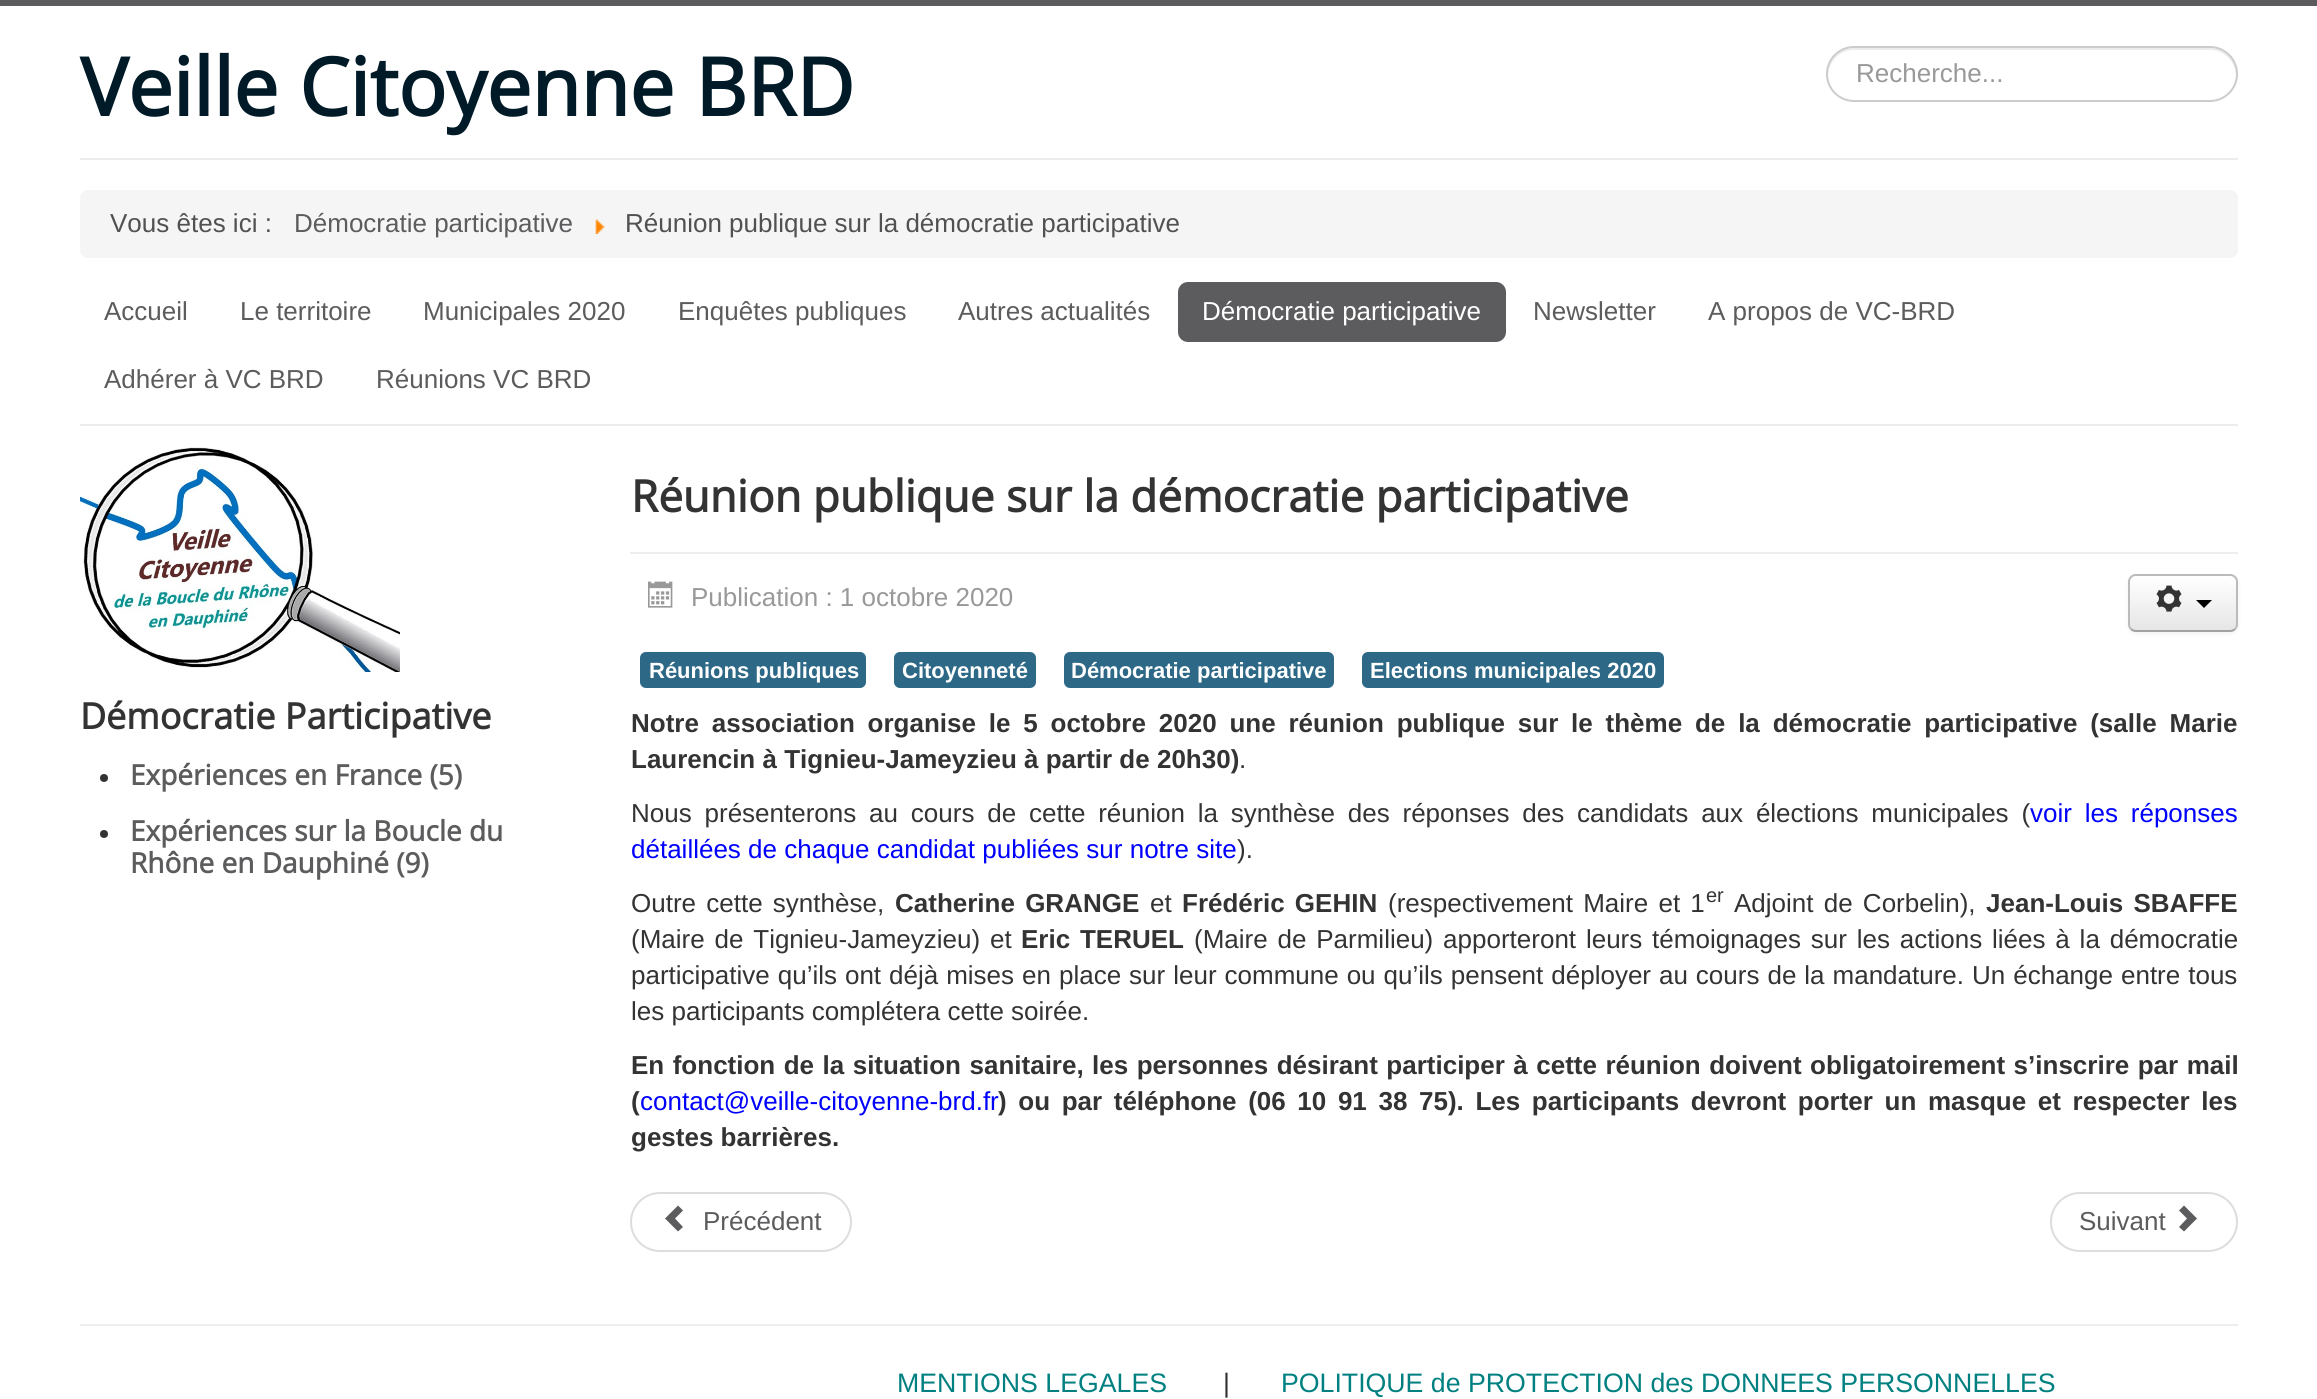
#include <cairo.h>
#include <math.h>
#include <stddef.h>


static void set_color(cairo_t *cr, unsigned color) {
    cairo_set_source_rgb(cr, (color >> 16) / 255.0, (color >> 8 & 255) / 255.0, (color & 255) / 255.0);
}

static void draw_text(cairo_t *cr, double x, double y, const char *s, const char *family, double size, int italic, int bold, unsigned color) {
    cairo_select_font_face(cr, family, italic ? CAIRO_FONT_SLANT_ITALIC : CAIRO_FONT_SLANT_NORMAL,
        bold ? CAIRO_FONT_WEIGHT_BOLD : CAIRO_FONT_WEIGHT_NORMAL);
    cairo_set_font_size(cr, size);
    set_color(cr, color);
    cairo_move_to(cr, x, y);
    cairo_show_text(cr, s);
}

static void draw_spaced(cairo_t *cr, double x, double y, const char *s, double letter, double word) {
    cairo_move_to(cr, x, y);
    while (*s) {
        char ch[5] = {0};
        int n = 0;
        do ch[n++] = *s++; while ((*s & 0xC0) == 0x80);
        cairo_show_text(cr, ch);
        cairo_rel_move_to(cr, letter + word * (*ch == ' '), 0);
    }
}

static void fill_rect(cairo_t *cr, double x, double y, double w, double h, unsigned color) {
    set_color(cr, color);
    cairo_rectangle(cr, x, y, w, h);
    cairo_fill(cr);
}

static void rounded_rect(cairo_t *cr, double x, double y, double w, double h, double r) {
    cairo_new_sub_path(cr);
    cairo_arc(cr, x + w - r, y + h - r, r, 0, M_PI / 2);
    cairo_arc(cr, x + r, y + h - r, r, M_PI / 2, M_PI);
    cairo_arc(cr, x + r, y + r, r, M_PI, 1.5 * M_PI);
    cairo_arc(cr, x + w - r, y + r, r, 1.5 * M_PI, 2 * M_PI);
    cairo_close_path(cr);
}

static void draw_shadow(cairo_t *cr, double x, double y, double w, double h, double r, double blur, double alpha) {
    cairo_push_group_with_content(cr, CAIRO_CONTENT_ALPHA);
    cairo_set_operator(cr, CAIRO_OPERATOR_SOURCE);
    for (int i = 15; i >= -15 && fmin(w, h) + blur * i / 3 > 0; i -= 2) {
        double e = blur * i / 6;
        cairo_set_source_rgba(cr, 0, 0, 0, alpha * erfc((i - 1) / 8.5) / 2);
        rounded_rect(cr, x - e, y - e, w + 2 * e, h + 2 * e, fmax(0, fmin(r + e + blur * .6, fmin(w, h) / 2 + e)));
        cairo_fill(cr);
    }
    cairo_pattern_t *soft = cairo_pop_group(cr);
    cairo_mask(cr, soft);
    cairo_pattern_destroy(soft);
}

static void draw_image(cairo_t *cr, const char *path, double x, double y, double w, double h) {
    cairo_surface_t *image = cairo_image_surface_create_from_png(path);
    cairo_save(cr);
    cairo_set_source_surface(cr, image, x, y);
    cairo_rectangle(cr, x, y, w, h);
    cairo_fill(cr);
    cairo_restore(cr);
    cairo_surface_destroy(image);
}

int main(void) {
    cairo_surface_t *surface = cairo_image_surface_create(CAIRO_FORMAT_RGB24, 2317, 1399);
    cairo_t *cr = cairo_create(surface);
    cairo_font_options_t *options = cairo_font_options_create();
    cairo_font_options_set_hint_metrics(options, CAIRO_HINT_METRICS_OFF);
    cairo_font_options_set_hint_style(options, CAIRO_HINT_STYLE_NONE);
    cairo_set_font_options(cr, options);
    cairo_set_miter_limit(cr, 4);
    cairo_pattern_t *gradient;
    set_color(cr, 0xFFFFFF);
    cairo_paint(cr);
    fill_rect(cr, 0, 0, 2317, 6, 0x5C5C5E);
    draw_text(cr, 80, 116, "Veille Citoyenne BRD", "Open Sans", 80, 0, 1, 0x001A27);
    set_color(cr, 0xECECEC);
    cairo_new_path(cr);
    cairo_move_to(cr, 1854, 50);
    cairo_line_to(cr, 2210, 50);
    cairo_curve_to(cr, 2224, 50, 2235, 61, 2236, 75);
    cairo_curve_to(cr, 2237, 60, 2225, 48, 2210, 48);
    cairo_line_to(cr, 1854, 48);
    cairo_curve_to(cr, 1839, 48, 1827, 60, 1828, 75);
    cairo_curve_to(cr, 1829, 61, 1840, 50, 1854, 50);
    cairo_close_path(cr);
    cairo_fill(cr);
    rounded_rect(cr, 1827, 47, 410, 54, 27);
    set_color(cr, 0xCCCCCC);
    cairo_stroke(cr);
    draw_text(cr, 1856, 82, "Recherche...", "Liberation Sans", 26, 0, 0, 0x999999);
    fill_rect(cr, 80, 158, 2158, 2, 0xECECEC);
    fill_rect(cr, 80, 424, 2158, 2, 0xECECEC);
    set_color(cr, 0xF5F5F5);
    rounded_rect(cr, 80, 190, 2158, 68, 8);
    cairo_fill(cr);
    draw_text(cr, 110, 232, "Vous êtes ici :", "Liberation Sans", 26, 0, 0, 0x515151);
    draw_text(cr, 294, 232, "Démocratie participative", "Liberation Sans", 26, 0, 0, 0x5C5C5E);
    draw_image(cr, "assets/img1.png", 595, 219, 10, 15);
    draw_text(cr, 625, 232, "Réunion publique sur la démocratie participative", "Liberation Sans", 26, 0, 0, 0x515151);
    draw_text(cr, 104, 320, "Accueil", "Liberation Sans", 26, 0, 0, 0x5C5C5E);
    draw_text(cr, 240, 320, "Le territoire", "Liberation Sans", 26, 0, 0, 0x5C5C5E);
    draw_text(cr, 423, 320, "Municipales 2020", "Liberation Sans", 26, 0, 0, 0x5C5C5E);
    draw_text(cr, 678, 320, "Enquêtes publiques", "Liberation Sans", 26, 0, 0, 0x5C5C5E);
    draw_text(cr, 958, 320, "Autres actualités", "Liberation Sans", 26, 0, 0, 0x5C5C5E);
    rounded_rect(cr, 1178, 282, 328, 60, 10);
    cairo_fill(cr);
    draw_text(cr, 1202, 320, "Démocratie participative", "Liberation Sans", 26, 0, 0, 0xFFFFFF);
    draw_text(cr, 1533, 320, "Newsletter", "Liberation Sans", 26, 0, 0, 0x5C5C5E);
    draw_text(cr, 1708, 320, "A propos de VC-BRD", "Liberation Sans", 26, 0, 0, 0x5C5C5E);
    draw_text(cr, 104, 388, "Adhérer à VC BRD", "Liberation Sans", 26, 0, 0, 0x5C5C5E);
    draw_text(cr, 376, 388, "Réunions VC BRD", "Liberation Sans", 26, 0, 0, 0x5C5C5E);
    draw_image(cr, "assets/img2.png", 80, 447, 320, 225);
    draw_text(cr, 80, 729, "Démocratie Participative", "Open Sans", 36, 0, 1, 0x333333);
    cairo_new_path(cr);
    cairo_arc(cr, 104, 778, 4, 0, 2 * M_PI);
    cairo_fill(cr);
    draw_text(cr, 130, 785, "Expériences en France (5)", "Open Sans", 28, 0, 1, 0x5C5C5E);
    set_color(cr, 0x333333);
    cairo_new_path(cr);
    cairo_arc(cr, 104, 834, 4, 0, 2 * M_PI);
    cairo_fill(cr);
    draw_text(cr, 130, 841, "Expériences sur la Boucle du", "Open Sans", 28, 0, 1, 0x5C5C5E);
    draw_text(cr, 130, 873, "Rhône en Dauphiné (9)", "Open Sans", 28, 0, 1, 0x5C5C5E);
    fill_rect(cr, 630, 552, 1608, 2, 0xEEEEEE);
    draw_text(cr, 631, 512, "Réunion publique sur la démocratie participative", "Open Sans", 44, 0, 1, 0x333333);
    draw_image(cr, "assets/img3.png", 648, 581, 25, 27);
    draw_text(cr, 691, 606, "Publication : 1 octobre 2020", "Liberation Sans", 26, 0, 0, 0x999999);
    set_color(cr, 0x000000);
    draw_shadow(cr, 2128, 576, 110, 58, 8, 2, 0.05);
    cairo_save(cr);
    rounded_rect(cr, 2128, 574, 110, 58, 8);
    cairo_clip(cr);
    gradient = cairo_pattern_create_linear(2183, 576, 2183, 630);
    cairo_pattern_add_color_stop_rgba(gradient, 0, 1, 1, 1, 1);
    cairo_pattern_add_color_stop_rgba(gradient, 1, 0.902, 0.902, 0.902, 1);
    cairo_set_source(cr, gradient);
    cairo_pattern_destroy(gradient);
    cairo_rectangle(cr, 2128, 576, 110, 54);
    cairo_fill(cr);
    cairo_restore(cr);
    cairo_new_path(cr);
    cairo_move_to(cr, 2235, 629);
    cairo_curve_to(cr, 2233.5, 630.5, 2232, 631, 2230, 631);
    cairo_line_to(cr, 2136, 631);
    cairo_curve_to(cr, 2134, 631, 2132.5, 630.5, 2131, 629);
    set_color(cr, 0xA2A2A2);
    cairo_stroke(cr);
    cairo_new_path(cr);
    cairo_move_to(cr, 2131, 629);
    cairo_curve_to(cr, 2129.5, 627.5, 2129, 626, 2129, 624);
    cairo_line_to(cr, 2129, 582);
    cairo_curve_to(cr, 2129, 580, 2129.5, 578.5, 2131, 577);
    cairo_curve_to(cr, 2132.5, 575.5, 2134, 575, 2136, 575);
    cairo_line_to(cr, 2230, 575);
    cairo_curve_to(cr, 2232, 575, 2233.5, 575.5, 2235, 577);
    cairo_curve_to(cr, 2236.5, 578.5, 2237, 580, 2237, 582);
    cairo_line_to(cr, 2237, 624);
    cairo_curve_to(cr, 2237, 626, 2236.5, 627.5, 2235, 629);
    set_color(cr, 0xBBBBBB);
    cairo_stroke(cr);
    draw_image(cr, "assets/img4.png", 2156, 585, 26, 27);
    set_color(cr, 0x000000);
    cairo_new_path(cr);
    cairo_move_to(cr, 2196, 600);
    cairo_line_to(cr, 2212, 600);
    cairo_line_to(cr, 2204, 608);
    cairo_close_path(cr);
    cairo_fill(cr);
    set_color(cr, 0x2D6987);
    rounded_rect(cr, 640, 652, 226, 36, 6);
    cairo_fill(cr);
    draw_text(cr, 649, 678, "Réunions publiques", "Liberation Sans", 22, 0, 1, 0xFFFFFF);
    set_color(cr, 0x2D6987);
    rounded_rect(cr, 894, 652, 142, 36, 6);
    cairo_fill(cr);
    draw_text(cr, 902, 678, "Citoyenneté", "Liberation Sans", 22, 0, 1, 0xFFFFFF);
    set_color(cr, 0x2D6987);
    rounded_rect(cr, 1064, 652, 270, 36, 6);
    cairo_fill(cr);
    draw_text(cr, 1071, 678, "Démocratie participative", "Liberation Sans", 22, 0, 1, 0xFFFFFF);
    set_color(cr, 0x2D6987);
    rounded_rect(cr, 1362, 652, 302, 36, 6);
    cairo_fill(cr);
    draw_text(cr, 1370, 678, "Elections municipales 2020", "Liberation Sans", 22, 0, 1, 0xFFFFFF);
    cairo_set_font_size(cr, 26);
    set_color(cr, 0x333333);
    draw_spaced(cr, 631, 732, "Notre association organise le 5 octobre 2020 une réunion publique sur le thème de la démocratie participative (salle Marie", 0, 5.6);
    draw_text(cr, 631, 768, "Laurencin à Tignieu-Jameyzieu à partir de 20h30)", "Liberation Sans", 26, 0, 1, 0x333333);
    draw_text(cr, 1239, 768, ".", "Liberation Sans", 26, 0, 0, 0x333333);
    draw_spaced(cr, 631, 822, "Nous présenterons au cours de cette réunion la synthèse des réponses des candidats aux élections municipales (", 0, 5.6);
    set_color(cr, 0x0000FF);
    draw_spaced(cr, 2030, 822, "voir les réponses", 0, 5.6);
    draw_text(cr, 631, 858, "détaillées de chaque candidat publiées sur notre site", "Liberation Sans", 26, 0, 0, 0x0000FF);
    draw_text(cr, 1237, 858, ").", "Liberation Sans", 26, 0, 0, 0x333333);
    draw_spaced(cr, 631, 912, "Outre cette synthèse,", 0, 3);
    cairo_select_font_face(cr, "Liberation Sans", CAIRO_FONT_SLANT_NORMAL, CAIRO_FONT_WEIGHT_BOLD);
    draw_spaced(cr, 895, 912, "Catherine GRANGE", 0, 3);
    draw_text(cr, 1150, 912, "et", "Liberation Sans", 26, 0, 0, 0x333333);
    cairo_select_font_face(cr, "Liberation Sans", CAIRO_FONT_SLANT_NORMAL, CAIRO_FONT_WEIGHT_BOLD);
    draw_spaced(cr, 1182, 912, "Frédéric GEHIN", 0, 3);
    cairo_select_font_face(cr, "Liberation Sans", CAIRO_FONT_SLANT_NORMAL, CAIRO_FONT_WEIGHT_NORMAL);
    draw_spaced(cr, 1388, 912, "(respectivement Maire et 1", 0, 3);
    draw_text(cr, 1706, 902, "er", "Liberation Sans", 20, 0, 0, 0x333333);
    cairo_set_font_size(cr, 26);
    draw_spaced(cr, 1734, 912, "Adjoint de Corbelin),", 0, 3);
    cairo_select_font_face(cr, "Liberation Sans", CAIRO_FONT_SLANT_NORMAL, CAIRO_FONT_WEIGHT_BOLD);
    draw_spaced(cr, 1986, 912, "Jean-Louis SBAFFE", 0, 3);
    cairo_select_font_face(cr, "Liberation Sans", CAIRO_FONT_SLANT_NORMAL, CAIRO_FONT_WEIGHT_NORMAL);
    draw_spaced(cr, 631, 948, "(Maire de Tignieu-Jameyzieu) et", 0, 2.6);
    cairo_select_font_face(cr, "Liberation Sans", CAIRO_FONT_SLANT_NORMAL, CAIRO_FONT_WEIGHT_BOLD);
    draw_spaced(cr, 1021, 948, "Eric TERUEL", 0, 2.6);
    cairo_select_font_face(cr, "Liberation Sans", CAIRO_FONT_SLANT_NORMAL, CAIRO_FONT_WEIGHT_NORMAL);
    draw_spaced(cr, 1194, 948, "(Maire de Parmilieu) apporteront leurs témoignages sur les actions liées à la démocratie", 0, 2.6);
    draw_spaced(cr, 631, 984, "participative qu’ils ont déjà mises en place sur leur commune ou qu’ils pensent déployer au cours de la mandature. Un échange entre tous", 0, 0.75);
    draw_text(cr, 631, 1020, "les participants complétera cette soirée.", "Liberation Sans", 26, 0, 0, 0x333333);
    cairo_select_font_face(cr, "Liberation Sans", CAIRO_FONT_SLANT_NORMAL, CAIRO_FONT_WEIGHT_BOLD);
    draw_spaced(cr, 631, 1074, "En fonction de la situation sanitaire, les personnes désirant participer à cette réunion doivent obligatoirement s’inscrire par mail", 0, 1.25);
    draw_text(cr, 631, 1110, "(", "Liberation Sans", 26, 0, 1, 0x333333);
    draw_text(cr, 640, 1110, "contact@veille-citoyenne-brd.fr", "Liberation Sans", 26, 0, 0, 0x0000FF);
    cairo_select_font_face(cr, "Liberation Sans", CAIRO_FONT_SLANT_NORMAL, CAIRO_FONT_WEIGHT_BOLD);
    set_color(cr, 0x333333);
    draw_spaced(cr, 998, 1110, ") ou par téléphone (06 10 91 38 75). Les participants devront porter un masque et respecter les", 0, 4.4);
    draw_text(cr, 631, 1146, "gestes barrières.", "Liberation Sans", 26, 0, 1, 0x333333);
    rounded_rect(cr, 631, 1193, 220, 58, 29);
    set_color(cr, 0xDDDDDD);
    cairo_stroke(cr);
    set_color(cr, 0x5C5C5E);
    cairo_new_path(cr);
    cairo_move_to(cr, 678, 1231.5);
    cairo_line_to(cr, 665, 1218.5);
    cairo_line_to(cr, 678, 1205.5);
    cairo_line_to(cr, 683, 1210.5);
    cairo_line_to(cr, 675, 1218.5);
    cairo_line_to(cr, 683, 1227);
    cairo_close_path(cr);
    cairo_fill(cr);
    draw_text(cr, 703, 1230, "Précédent", "Liberation Sans", 26, 0, 0, 0x5C5C5E);
    rounded_rect(cr, 2051, 1193, 186, 58, 29);
    set_color(cr, 0xDDDDDD);
    cairo_stroke(cr);
    draw_text(cr, 2079, 1230, "Suivant", "Liberation Sans", 26, 0, 0, 0x5C5C5E);
    cairo_new_path(cr);
    cairo_move_to(cr, 2184, 1205.5);
    cairo_line_to(cr, 2197, 1218.5);
    cairo_line_to(cr, 2184, 1231.5);
    cairo_line_to(cr, 2179, 1227);
    cairo_line_to(cr, 2187, 1218.5);
    cairo_line_to(cr, 2179, 1210.5);
    cairo_close_path(cr);
    cairo_fill(cr);
    fill_rect(cr, 80, 1324, 2158, 2, 0xEEEEEE);
    draw_text(cr, 897, 1392, "MENTIONS LEGALES", "Liberation Sans", 26.7, 0, 0, 0x008080);
    draw_text(cr, 1223, 1392, "|", "Liberation Sans", 26.7, 0, 0, 0x333333);
    draw_text(cr, 1281, 1392, "POLITIQUE de PROTECTION des DONNEES PERSONNELLES", "Liberation Sans", 26.7, 0, 0, 0x008080);
    cairo_surface_write_to_png(surface, "output.png");
    cairo_font_options_destroy(options);
    cairo_destroy(cr);
    cairo_surface_destroy(surface);
    return 0;
}
